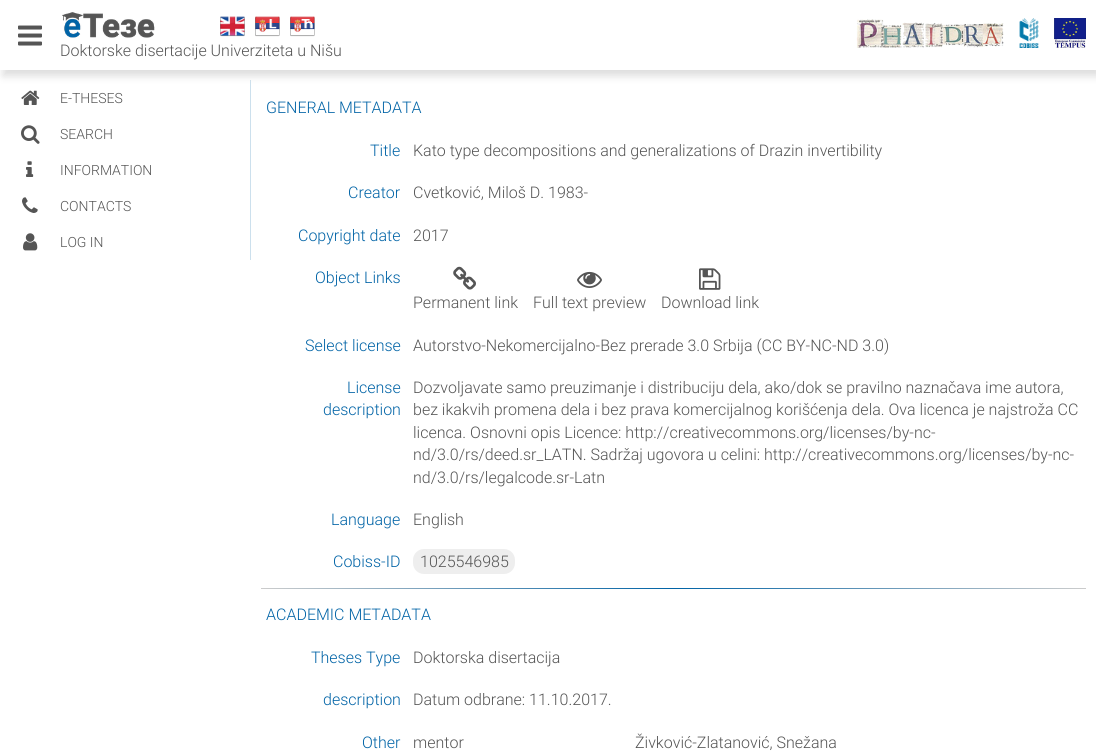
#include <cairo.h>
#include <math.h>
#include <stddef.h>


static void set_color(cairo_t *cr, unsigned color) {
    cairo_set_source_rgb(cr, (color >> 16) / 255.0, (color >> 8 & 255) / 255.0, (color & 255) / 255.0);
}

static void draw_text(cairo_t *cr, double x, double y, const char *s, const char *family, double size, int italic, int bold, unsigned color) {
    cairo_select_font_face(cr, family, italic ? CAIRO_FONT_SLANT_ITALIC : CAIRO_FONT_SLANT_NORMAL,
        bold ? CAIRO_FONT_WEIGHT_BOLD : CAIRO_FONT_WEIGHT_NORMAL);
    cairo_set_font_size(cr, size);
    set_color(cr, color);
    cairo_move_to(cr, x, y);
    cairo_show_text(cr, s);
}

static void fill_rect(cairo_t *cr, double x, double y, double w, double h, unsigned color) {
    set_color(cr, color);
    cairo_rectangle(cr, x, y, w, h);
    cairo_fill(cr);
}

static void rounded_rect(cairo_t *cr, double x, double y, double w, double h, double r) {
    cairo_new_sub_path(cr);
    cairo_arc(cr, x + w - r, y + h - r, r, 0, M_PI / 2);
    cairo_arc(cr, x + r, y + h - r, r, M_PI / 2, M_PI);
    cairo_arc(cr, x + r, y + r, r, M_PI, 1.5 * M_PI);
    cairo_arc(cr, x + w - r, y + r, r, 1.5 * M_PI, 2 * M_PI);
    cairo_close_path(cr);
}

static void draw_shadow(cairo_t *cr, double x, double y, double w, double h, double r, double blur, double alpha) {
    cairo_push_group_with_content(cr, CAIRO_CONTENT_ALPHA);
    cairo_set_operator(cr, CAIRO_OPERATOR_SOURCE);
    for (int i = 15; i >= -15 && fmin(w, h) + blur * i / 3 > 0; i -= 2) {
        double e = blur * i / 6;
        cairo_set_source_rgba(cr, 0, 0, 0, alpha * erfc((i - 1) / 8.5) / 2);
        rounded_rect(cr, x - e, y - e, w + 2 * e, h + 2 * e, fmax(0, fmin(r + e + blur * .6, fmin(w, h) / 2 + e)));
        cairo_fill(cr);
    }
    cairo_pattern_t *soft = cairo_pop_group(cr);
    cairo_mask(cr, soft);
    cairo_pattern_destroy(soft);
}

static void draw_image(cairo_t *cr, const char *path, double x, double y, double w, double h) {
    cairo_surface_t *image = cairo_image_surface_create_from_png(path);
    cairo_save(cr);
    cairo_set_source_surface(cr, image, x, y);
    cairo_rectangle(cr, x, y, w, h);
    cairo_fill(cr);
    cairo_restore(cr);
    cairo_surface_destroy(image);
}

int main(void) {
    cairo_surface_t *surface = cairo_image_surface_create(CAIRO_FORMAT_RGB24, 1096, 755);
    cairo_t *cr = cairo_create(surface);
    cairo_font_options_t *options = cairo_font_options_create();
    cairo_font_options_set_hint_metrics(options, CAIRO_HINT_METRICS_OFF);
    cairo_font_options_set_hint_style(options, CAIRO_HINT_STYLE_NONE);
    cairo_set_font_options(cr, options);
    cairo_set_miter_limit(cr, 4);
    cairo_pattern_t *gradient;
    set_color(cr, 0xFFFFFF);
    cairo_paint(cr);
    fill_rect(cr, 250, 80, 1, 180, 0xCCE0ED);
    cairo_save(cr);
    cairo_rectangle(cr, 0, 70, 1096, 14);
    cairo_clip(cr);
    set_color(cr, 0xDDDDDD);
    draw_shadow(cr, 3, 6, 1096, 70, 0, 4, 1);
    cairo_restore(cr);
    draw_image(cr, "assets/img1.png", 856, 19, 148, 29);
    draw_image(cr, "assets/img2.png", 1019, 18, 20, 30);
    draw_image(cr, "assets/img3.png", 1054, 18, 32, 30);
    draw_image(cr, "assets/img4.png", 18, 25, 24, 21);
    draw_image(cr, "assets/img5.png", 62, 12, 93, 26);
    draw_image(cr, "assets/img6.png", 220, 16, 25, 21);
    draw_image(cr, "assets/img7.png", 255, 16, 25, 21);
    draw_image(cr, "assets/img8.png", 290, 16, 25, 21);
    draw_text(cr, 60, 56, "Doktorske disertacije Univerziteta u Nišu", "Roboto Light", 16, 0, 0, 0x555555);
    draw_image(cr, "assets/img9.png", 21, 90, 19, 15);
    draw_text(cr, 60, 103, "E-THESES", "Roboto Light", 14, 0, 0, 0x555555);
    draw_image(cr, "assets/img10.png", 21, 125, 19, 19);
    draw_text(cr, 60, 139, "SEARCH", "Roboto Light", 14, 0, 0, 0x555555);
    draw_image(cr, "assets/img11.png", 26, 161, 8, 16);
    draw_text(cr, 60, 175, "INFORMATION", "Roboto Light", 14, 0, 0, 0x555555);
    draw_image(cr, "assets/img12.png", 22, 197, 16, 16);
    draw_text(cr, 60, 211, "CONTACTS", "Roboto Light", 14, 0, 0, 0x555555);
    draw_image(cr, "assets/img13.png", 23, 233, 15, 18);
    draw_text(cr, 60, 247, "LOG IN", "Roboto Light", 14, 0, 0, 0x555555);
    draw_text(cr, 266, 113, "GENERAL METADATA", "Roboto Light", 16, 0, 0, 0x0063A6);
    draw_text(cr, 370, 156, "Title", "Roboto Light", 16, 0, 0, 0x0063A6);
    draw_text(cr, 413, 156, "Kato type decompositions and generalizations of Drazin invertibility", "Roboto Light", 16, 0, 0, 0x555555);
    draw_text(cr, 348, 198, "Creator", "Roboto Light", 16, 0, 0, 0x0063A6);
    draw_text(cr, 413, 198, "Cvetković, Miloš D. 1983-", "Roboto Light", 16, 0, 0, 0x555555);
    draw_text(cr, 298, 241, "Copyright date", "Roboto Light", 16, 0, 0, 0x0063A6);
    draw_text(cr, 413, 241, "2017", "Roboto Light", 16, 0, 0, 0x555555);
    draw_text(cr, 315, 283, "Object Links", "Roboto Light", 16, 0, 0, 0x0063A6);
    draw_image(cr, "assets/img14.png", 453, 266, 23, 24);
    draw_text(cr, 413, 308, "Permanent link", "Roboto Light", 16, 0, 0, 0x555555);
    draw_image(cr, "assets/img15.png", 577, 271, 25, 17);
    draw_text(cr, 533, 308, "Full text preview", "Roboto Light", 16, 0, 0, 0x555555);
    draw_image(cr, "assets/img16.png", 699, 268, 22, 22);
    draw_text(cr, 661, 308, "Download link", "Roboto Light", 16, 0, 0, 0x555555);
    draw_text(cr, 305, 351, "Select license", "Roboto Light", 16, 0, 0, 0x0063A6);
    draw_text(cr, 413, 351, "Autorstvo-Nekomercijalno-Bez prerade 3.0 Srbija (CC BY-NC-ND 3.0)", "Roboto Light", 16, 0, 0, 0x555555);
    draw_text(cr, 347, 393, "License", "Roboto Light", 16, 0, 0, 0x0063A6);
    draw_text(cr, 323, 415, "description", "Roboto Light", 16, 0, 0, 0x0063A6);
    draw_text(cr, 413, 393, "Dozvoljavate samo preuzimanje i distribuciju dela, ako/dok se pravilno naznačava ime autora,", "Roboto Light", 16, 0, 0, 0x555555);
    draw_text(cr, 413, 415, "bez ikakvih promena dela i bez prava komercijalnog korišćenja dela. Ova licenca je najstroža CC", "Roboto Light", 16, 0, 0, 0x555555);
    draw_text(cr, 413, 438, "licenca. Osnovni opis Licence: http://creativecommons.org/licenses/by-nc-", "Roboto Light", 16, 0, 0, 0x555555);
    draw_text(cr, 413, 460, "nd/3.0/rs/deed.sr_LATN. Sadržaj ugovora u celini: http://creativecommons.org/licenses/by-nc-", "Roboto Light", 16, 0, 0, 0x555555);
    draw_text(cr, 413, 483, "nd/3.0/rs/legalcode.sr-Latn", "Roboto Light", 16, 0, 0, 0x555555);
    draw_text(cr, 331, 525, "Language", "Roboto Light", 16, 0, 0, 0x0063A6);
    draw_text(cr, 413, 525, "English", "Roboto Light", 16, 0, 0, 0x555555);
    draw_text(cr, 333, 567, "Cobiss-ID", "Roboto Light", 16, 0, 0, 0x0063A6);
    set_color(cr, 0xEEEEEE);
    rounded_rect(cr, 413, 549, 102, 25, 11);
    cairo_fill(cr);
    draw_text(cr, 420, 567, "1025546985", "Roboto Light", 16, 0, 0, 0x555555);
    gradient = cairo_pattern_create_linear(261, 589, 1086, 589);
    cairo_pattern_add_color_stop_rgba(gradient, 0, 0.8, 0.8, 0.8, 1);
    cairo_pattern_add_color_stop_rgba(gradient, 0.5, 0, 0.388, 0.651, 1);
    cairo_pattern_add_color_stop_rgba(gradient, 1, 0.8, 0.8, 0.8, 1);
    cairo_set_source(cr, gradient);
    cairo_pattern_destroy(gradient);
    cairo_rectangle(cr, 261, 588, 825, 1);
    cairo_fill(cr);
    draw_text(cr, 266, 620, "ACADEMIC METADATA", "Roboto Light", 16, 0, 0, 0x0063A6);
    draw_text(cr, 311, 663, "Theses Type", "Roboto Light", 16, 0, 0, 0x0063A6);
    draw_text(cr, 413, 663, "Doktorska disertacija", "Roboto Light", 16, 0, 0, 0x555555);
    draw_text(cr, 323, 705, "description", "Roboto Light", 16, 0, 0, 0x0063A6);
    draw_text(cr, 413, 705, "Datum odbrane: 11.10.2017.", "Roboto Light", 16, 0, 0, 0x555555);
    draw_text(cr, 362, 748, "Other", "Roboto Light", 16, 0, 0, 0x0063A6);
    draw_text(cr, 413, 748, "mentor", "Roboto Light", 16, 0, 0, 0x555555);
    draw_text(cr, 635, 748, "Živković-Zlatanović, Snežana", "Roboto Light", 16, 0, 0, 0x555555);
    cairo_surface_write_to_png(surface, "output.png");
    cairo_font_options_destroy(options);
    cairo_destroy(cr);
    cairo_surface_destroy(surface);
    return 0;
}
